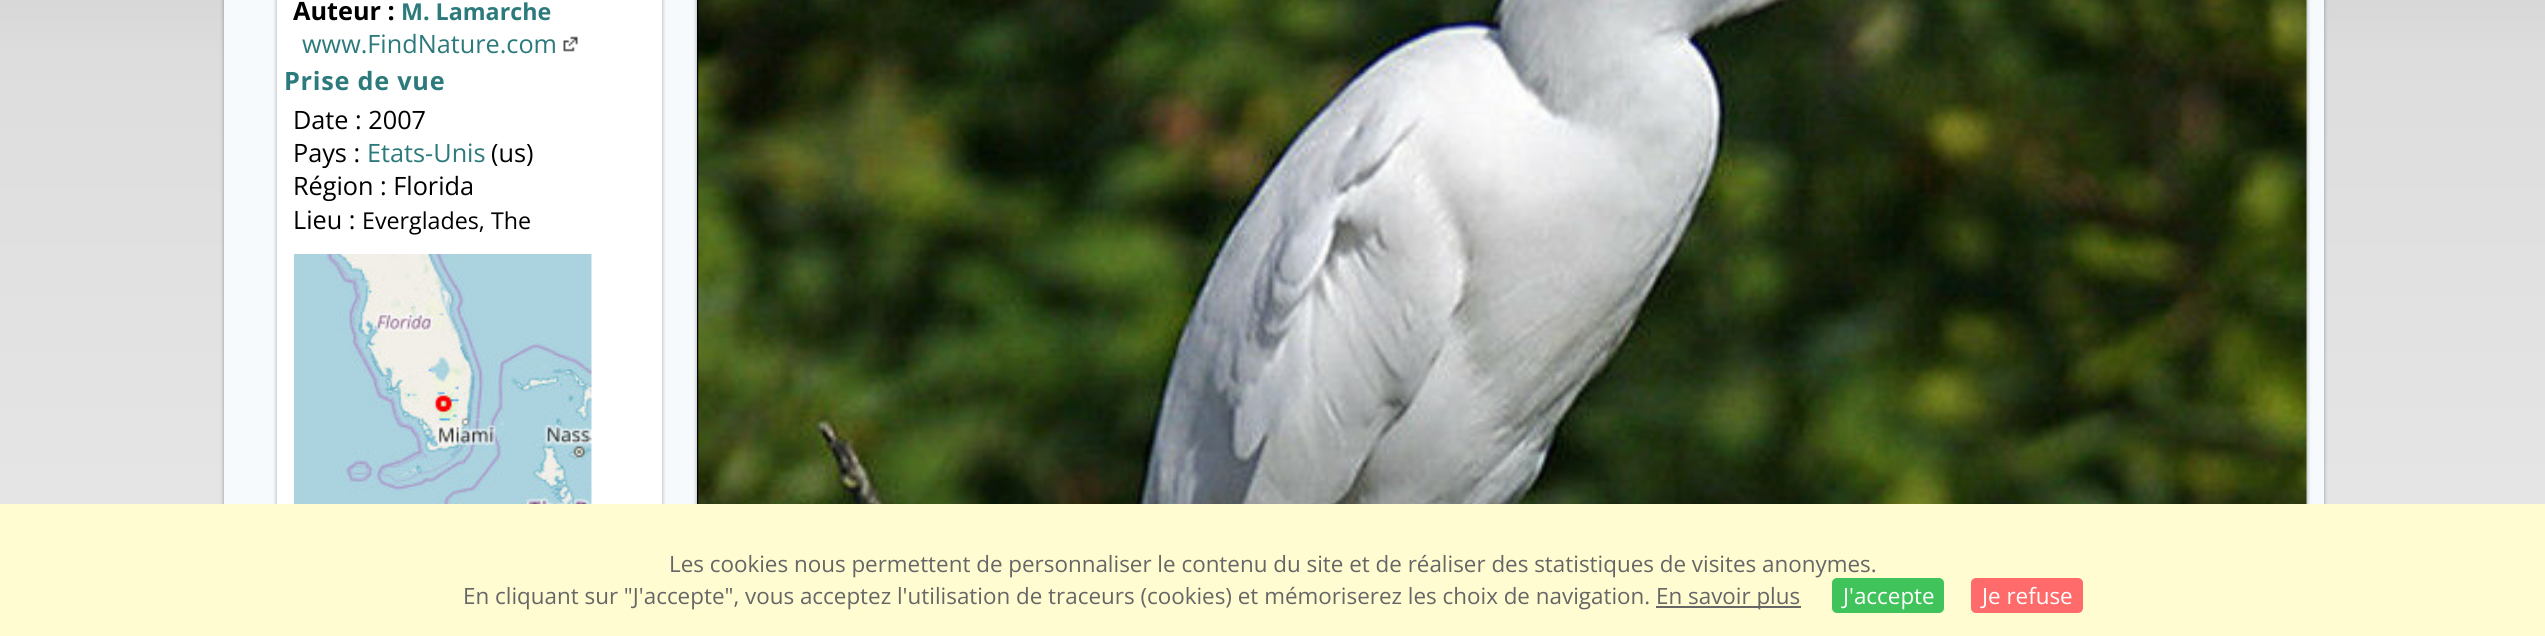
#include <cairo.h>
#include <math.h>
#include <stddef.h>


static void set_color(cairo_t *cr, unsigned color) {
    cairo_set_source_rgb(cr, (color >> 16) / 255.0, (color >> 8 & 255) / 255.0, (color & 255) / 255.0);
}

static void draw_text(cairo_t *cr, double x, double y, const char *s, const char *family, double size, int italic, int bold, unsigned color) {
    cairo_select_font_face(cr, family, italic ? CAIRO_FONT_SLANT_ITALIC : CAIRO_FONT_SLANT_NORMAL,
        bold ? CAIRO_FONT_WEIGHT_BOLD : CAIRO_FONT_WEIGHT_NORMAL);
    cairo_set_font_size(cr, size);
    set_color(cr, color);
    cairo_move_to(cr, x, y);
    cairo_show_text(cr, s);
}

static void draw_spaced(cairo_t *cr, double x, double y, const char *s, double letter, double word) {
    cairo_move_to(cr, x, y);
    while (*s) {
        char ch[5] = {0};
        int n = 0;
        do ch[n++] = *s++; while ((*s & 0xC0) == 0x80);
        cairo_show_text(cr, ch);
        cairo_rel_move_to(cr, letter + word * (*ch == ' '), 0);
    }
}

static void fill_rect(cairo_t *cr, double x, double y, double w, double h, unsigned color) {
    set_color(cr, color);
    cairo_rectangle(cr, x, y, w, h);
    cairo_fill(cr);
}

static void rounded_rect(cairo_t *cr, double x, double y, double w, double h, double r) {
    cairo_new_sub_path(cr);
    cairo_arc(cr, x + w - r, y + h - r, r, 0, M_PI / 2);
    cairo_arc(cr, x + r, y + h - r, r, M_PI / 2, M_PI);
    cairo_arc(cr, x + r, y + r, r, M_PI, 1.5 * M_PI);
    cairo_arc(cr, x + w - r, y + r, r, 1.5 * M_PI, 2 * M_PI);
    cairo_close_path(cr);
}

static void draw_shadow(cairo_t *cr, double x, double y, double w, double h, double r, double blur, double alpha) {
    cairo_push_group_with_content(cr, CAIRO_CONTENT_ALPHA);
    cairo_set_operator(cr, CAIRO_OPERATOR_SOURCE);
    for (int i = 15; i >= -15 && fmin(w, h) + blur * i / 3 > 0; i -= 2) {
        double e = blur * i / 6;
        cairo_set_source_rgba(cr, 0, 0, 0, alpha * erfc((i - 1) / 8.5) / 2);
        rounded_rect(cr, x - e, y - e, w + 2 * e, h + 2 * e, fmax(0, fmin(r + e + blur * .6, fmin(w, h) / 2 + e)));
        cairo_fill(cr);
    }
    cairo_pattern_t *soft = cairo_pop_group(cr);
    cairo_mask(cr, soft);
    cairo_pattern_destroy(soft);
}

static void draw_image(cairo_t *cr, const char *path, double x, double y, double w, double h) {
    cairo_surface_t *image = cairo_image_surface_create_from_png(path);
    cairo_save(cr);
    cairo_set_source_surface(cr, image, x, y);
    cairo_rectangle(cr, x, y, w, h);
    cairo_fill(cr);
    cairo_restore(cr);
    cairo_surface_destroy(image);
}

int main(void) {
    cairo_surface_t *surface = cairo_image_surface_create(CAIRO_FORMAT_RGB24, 2545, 636);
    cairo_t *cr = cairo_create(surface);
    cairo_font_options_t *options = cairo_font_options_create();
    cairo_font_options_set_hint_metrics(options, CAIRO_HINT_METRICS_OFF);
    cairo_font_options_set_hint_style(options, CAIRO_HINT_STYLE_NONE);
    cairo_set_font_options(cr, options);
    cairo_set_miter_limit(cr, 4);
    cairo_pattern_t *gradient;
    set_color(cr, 0xFFFFFF);
    cairo_paint(cr);
    gradient = cairo_pattern_create_linear(1273, -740, 1273, 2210);
    cairo_pattern_add_color_stop_rgba(gradient, 0, 0.733, 0.733, 0.733, 1);
    cairo_pattern_add_color_stop_rgba(gradient, 0.15, 0.733, 0.733, 0.733, 1);
    cairo_pattern_add_color_stop_rgba(gradient, 0.27, 0.867, 0.867, 0.867, 1);
    cairo_pattern_add_color_stop_rgba(gradient, 0.9, 1, 1, 1, 1);
    cairo_pattern_add_color_stop_rgba(gradient, 1, 1, 1, 1, 1);
    cairo_set_source(cr, gradient);
    cairo_pattern_destroy(gradient);
    cairo_rectangle(cr, 0, 0, 2545, 504);
    cairo_fill(cr);
    set_color(cr, 0x000000);
    draw_shadow(cr, 224, -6, 2100, 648, 0, 2, 0.24);
    draw_shadow(cr, 224, -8, 2100, 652, 0, 2.5, 0.12);
    fill_rect(cr, 224, 0, 2100, 504, 0xF7FAFC);
    set_color(cr, 0x000000);
    draw_shadow(cr, 277, -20, 385, 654, 14, 2, 0.24);
    draw_shadow(cr, 277, -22, 385, 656, 14, 2.5, 0.12);
    fill_rect(cr, 277, 0, 385, 504, 0xFFFFFF);
    draw_text(cr, 293, 20, "Auteur :", "Open Sans", 25.25, 0, 1, 0x000000);
    draw_text(cr, 401, 20, "M. Lamarche", "Open Sans", 23.25, 0, 1, 0x2C7A7B);
    draw_text(cr, 302, 53, "www.FindNature.com", "Open Sans", 25.25, 0, 0, 0x2C7A7B);
    draw_image(cr, "assets/img1.png", 563, 36, 15, 16);
    cairo_select_font_face(cr, "Open Sans", CAIRO_FONT_SLANT_NORMAL, CAIRO_FONT_WEIGHT_BOLD);
    draw_spaced(cr, 284, 90, "Prise de vue", 0.75, 0);
    draw_text(cr, 293, 129, "Date : 2007", "Open Sans", 25.25, 0, 0, 0x000000);
    draw_text(cr, 293, 162, "Pays :", "Open Sans", 25.25, 0, 0, 0x000000);
    draw_text(cr, 367, 162, "Etats-Unis", "Open Sans", 25.25, 0, 0, 0x2C7A7B);
    draw_text(cr, 491, 162, "(us)", "Open Sans", 25.25, 0, 0, 0x000000);
    draw_text(cr, 293, 195, "Région : Florida", "Open Sans", 25.25, 0, 0, 0x000000);
    draw_text(cr, 293, 229, "Lieu :", "Open Sans", 25.25, 0, 0, 0x000000);
    draw_text(cr, 362, 229, "Everglades, The", "Open Sans", 23.25, 0, 0, 0x000000);
    draw_image(cr, "assets/img2.png", 294, 254, 298, 250);
    set_color(cr, 0x000000);
    draw_shadow(cr, 697, -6, 1610, 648, 0, 2, 0.24);
    draw_shadow(cr, 697, -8, 1610, 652, 0, 2.5, 0.12);
    cairo_save(cr);
    cairo_rectangle(cr, 697, 0, 1610, 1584);
    cairo_clip(cr);
    cairo_rectangle(cr, 698, -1, 1611, 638);
    set_color(cr, 0x000000);
    cairo_stroke(cr);
    cairo_restore(cr);
    draw_image(cr, "assets/img3.png", 698, 0, 1609, 504);
    fill_rect(cr, 0, 504, 2545, 132, 0xFFFCD1);
    draw_text(cr, 669, 572, "Les cookies nous permettent de personnaliser le contenu du site et de réaliser des statistiques de visites anonymes.", "Open Sans", 22.4, 0, 0, 0x666666);
    draw_text(cr, 463, 604, "En cliquant sur \"J'accepte\", vous acceptez l'utilisation de traceurs (cookies) et mémoriserez les choix de navigation.", "Open Sans", 22.4, 0, 0, 0x666666);
    fill_rect(cr, 1656, 606, 145, 2, 0x666666);
    draw_text(cr, 1656, 604, "En savoir plus", "Open Sans", 22.4, 0, 0, 0x666666);
    set_color(cr, 0x3FC35A);
    rounded_rect(cr, 1832, 578, 112, 35, 5);
    cairo_fill(cr);
    draw_text(cr, 1843, 604, "J'accepte", "Open Sans", 22.4, 0, 0, 0xFFFFFF);
    set_color(cr, 0xFF6B6B);
    rounded_rect(cr, 1971, 578, 112, 35, 5);
    cairo_fill(cr);
    draw_text(cr, 1982, 604, "Je refuse", "Open Sans", 22.4, 0, 0, 0xFFFFFF);
    cairo_surface_write_to_png(surface, "output.png");
    cairo_font_options_destroy(options);
    cairo_destroy(cr);
    cairo_surface_destroy(surface);
    return 0;
}
